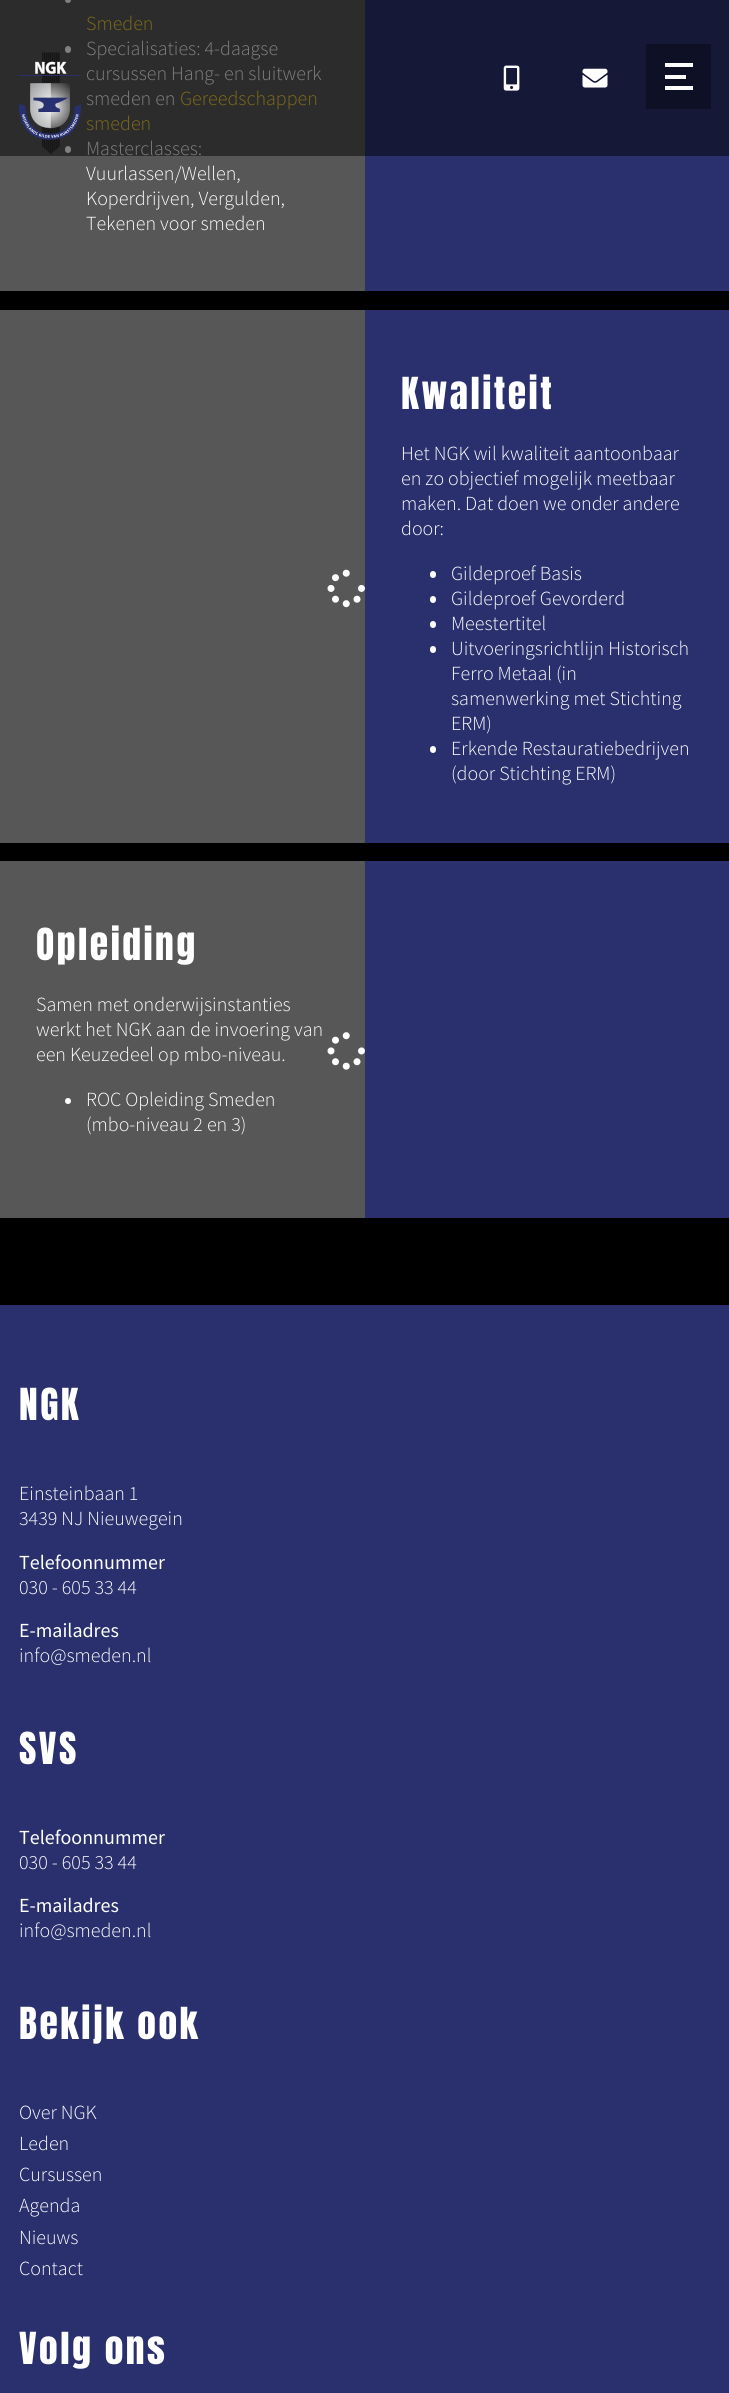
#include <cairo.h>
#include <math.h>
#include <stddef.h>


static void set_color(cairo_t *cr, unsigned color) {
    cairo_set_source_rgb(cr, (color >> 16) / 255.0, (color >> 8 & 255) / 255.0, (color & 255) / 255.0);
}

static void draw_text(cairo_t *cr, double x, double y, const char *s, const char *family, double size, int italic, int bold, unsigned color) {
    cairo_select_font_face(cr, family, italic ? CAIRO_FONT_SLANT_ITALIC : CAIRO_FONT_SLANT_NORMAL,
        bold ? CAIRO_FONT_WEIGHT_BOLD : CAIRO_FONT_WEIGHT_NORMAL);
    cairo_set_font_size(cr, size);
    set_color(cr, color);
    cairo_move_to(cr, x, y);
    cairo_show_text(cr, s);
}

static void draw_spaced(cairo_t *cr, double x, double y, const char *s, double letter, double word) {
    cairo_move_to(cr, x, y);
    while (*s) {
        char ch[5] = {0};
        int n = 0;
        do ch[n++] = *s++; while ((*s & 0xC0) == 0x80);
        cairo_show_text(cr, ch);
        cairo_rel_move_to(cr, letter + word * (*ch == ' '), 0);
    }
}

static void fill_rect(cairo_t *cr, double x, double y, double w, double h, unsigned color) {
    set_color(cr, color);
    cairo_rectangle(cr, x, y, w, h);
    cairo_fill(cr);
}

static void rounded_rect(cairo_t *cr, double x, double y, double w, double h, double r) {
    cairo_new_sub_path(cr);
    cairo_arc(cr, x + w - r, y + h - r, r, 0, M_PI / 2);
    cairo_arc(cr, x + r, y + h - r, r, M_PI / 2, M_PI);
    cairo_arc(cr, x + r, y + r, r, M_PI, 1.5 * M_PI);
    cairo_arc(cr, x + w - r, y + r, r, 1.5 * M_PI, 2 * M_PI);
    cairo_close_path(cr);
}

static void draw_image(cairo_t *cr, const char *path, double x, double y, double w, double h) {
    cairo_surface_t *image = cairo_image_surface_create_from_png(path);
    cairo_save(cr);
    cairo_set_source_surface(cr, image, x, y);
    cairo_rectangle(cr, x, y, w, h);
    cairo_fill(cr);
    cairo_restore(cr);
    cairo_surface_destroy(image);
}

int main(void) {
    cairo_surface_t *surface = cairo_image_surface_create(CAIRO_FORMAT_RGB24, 729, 2393);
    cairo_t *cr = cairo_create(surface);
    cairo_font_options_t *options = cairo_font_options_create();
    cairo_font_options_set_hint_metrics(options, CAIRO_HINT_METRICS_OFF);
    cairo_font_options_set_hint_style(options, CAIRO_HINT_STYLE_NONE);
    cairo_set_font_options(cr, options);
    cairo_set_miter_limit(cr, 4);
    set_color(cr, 0x000000);
    cairo_paint(cr);
    fill_rect(cr, 0, 156, 365, 135, 0x575757);
    fill_rect(cr, 0, 0, 365, 156, 0x2C2C2C);
    set_color(cr, 0x808080);
    cairo_arc(cr, 68, 0, 3, 0, 2 * M_PI);
    cairo_fill(cr);
    draw_text(cr, 86, 30, "Smeden", "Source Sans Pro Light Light", 20, 0, 0, 0x806B1A);
    set_color(cr, 0x808080);
    rounded_rect(cr, 65, 46, 6, 7, 3);
    cairo_fill(cr);
    draw_text(cr, 86, 55, "Specialisaties: 4-daagse", "Source Sans Pro Light Light", 20, 0, 0, 0x808080);
    draw_text(cr, 86, 80, "cursussen Hang- en sluitwerk", "Source Sans Pro Light Light", 20, 0, 0, 0x808080);
    draw_text(cr, 86, 105, "smeden en", "Source Sans Pro Light Light", 20, 0, 0, 0x808080);
    draw_text(cr, 180, 105, "Gereedschappen", "Source Sans Pro Light Light", 20, 0, 0, 0x806B1A);
    draw_text(cr, 86, 130, "smeden", "Source Sans Pro Light Light", 20, 0, 0, 0x806B1A);
    set_color(cr, 0x808080);
    rounded_rect(cr, 65, 146, 6, 7, 3);
    cairo_fill(cr);
    draw_text(cr, 86, 155, "Masterclasses:", "Source Sans Pro Light Light", 20, 0, 0, 0x808080);
    draw_text(cr, 86, 180, "Vuurlassen/Wellen,", "Source Sans Pro Light Light", 20, 0, 0, 0xFFFFFF);
    draw_text(cr, 86, 205, "Koperdrijven, Vergulden,", "Source Sans Pro Light Light", 20, 0, 0, 0xFFFFFF);
    draw_text(cr, 86, 230, "Tekenen voor smeden", "Source Sans Pro Light Light", 20, 0, 0, 0xFFFFFF);
    fill_rect(cr, 365, 156, 364, 135, 0x29306D);
    fill_rect(cr, 365, 0, 364, 156, 0x151837);
    fill_rect(cr, 0, 310, 365, 533, 0x575757);
    draw_image(cr, "assets/img1.png", 327, 569, 38, 39);
    fill_rect(cr, 365, 310, 364, 533, 0x29306D);
    cairo_select_font_face(cr, "Anton", CAIRO_FONT_SLANT_NORMAL, CAIRO_FONT_WEIGHT_NORMAL);
    cairo_set_font_size(cr, 37.5);
    set_color(cr, 0xFFFFFF);
    draw_spaced(cr, 401, 409, "Kwaliteit", 2.5, 0);
    draw_text(cr, 401, 460, "Het NGK wil kwaliteit aantoonbaar", "Source Sans Pro Light Light", 20, 0, 0, 0xFFFFFF);
    draw_text(cr, 401, 485, "en zo objectief mogelijk meetbaar", "Source Sans Pro Light Light", 20, 0, 0, 0xFFFFFF);
    draw_text(cr, 401, 510, "maken. Dat doen we onder andere", "Source Sans Pro Light Light", 20, 0, 0, 0xFFFFFF);
    draw_text(cr, 401, 535, "door:", "Source Sans Pro Light Light", 20, 0, 0, 0xFFFFFF);
    rounded_rect(cr, 430, 571, 6, 7, 3);
    cairo_fill(cr);
    draw_text(cr, 451, 580, "Gildeproef Basis", "Source Sans Pro Light Light", 20, 0, 0, 0xFFFFFF);
    rounded_rect(cr, 430, 596, 6, 7, 3);
    cairo_fill(cr);
    draw_text(cr, 451, 605, "Gildeproef Gevorderd", "Source Sans Pro Light Light", 20, 0, 0, 0xFFFFFF);
    rounded_rect(cr, 430, 621, 6, 7, 3);
    cairo_fill(cr);
    draw_text(cr, 451, 630, "Meestertitel", "Source Sans Pro Light Light", 20, 0, 0, 0xFFFFFF);
    rounded_rect(cr, 430, 646, 6, 7, 3);
    cairo_fill(cr);
    draw_text(cr, 451, 655, "Uitvoeringsrichtlijn Historisch", "Source Sans Pro Light Light", 20, 0, 0, 0xFFFFFF);
    draw_text(cr, 451, 680, "Ferro Metaal (in", "Source Sans Pro Light Light", 20, 0, 0, 0xFFFFFF);
    draw_text(cr, 451, 705, "samenwerking met Stichting", "Source Sans Pro Light Light", 20, 0, 0, 0xFFFFFF);
    draw_text(cr, 451, 730, "ERM)", "Source Sans Pro Light Light", 20, 0, 0, 0xFFFFFF);
    rounded_rect(cr, 430, 746, 6, 7, 3);
    cairo_fill(cr);
    draw_text(cr, 451, 755, "Erkende Restauratiebedrijven", "Source Sans Pro Light Light", 20, 0, 0, 0xFFFFFF);
    draw_text(cr, 451, 780, "(door Stichting ERM)", "Source Sans Pro Light Light", 20, 0, 0, 0xFFFFFF);
    fill_rect(cr, 0, 861, 365, 357, 0x575757);
    cairo_select_font_face(cr, "Anton", CAIRO_FONT_SLANT_NORMAL, CAIRO_FONT_WEIGHT_NORMAL);
    cairo_set_font_size(cr, 37.5);
    set_color(cr, 0xFFFFFF);
    draw_spaced(cr, 36, 960, "Opleiding", 2.5, 0);
    draw_text(cr, 36, 1011, "Samen met onderwijsinstanties", "Source Sans Pro Light Light", 20, 0, 0, 0xFFFFFF);
    draw_text(cr, 36, 1036, "werkt het NGK aan de invoering van", "Source Sans Pro Light Light", 20, 0, 0, 0xFFFFFF);
    draw_text(cr, 36, 1061, "een Keuzedeel op mbo-niveau.", "Source Sans Pro Light Light", 20, 0, 0, 0xFFFFFF);
    cairo_new_path(cr);
    cairo_arc(cr, 68, 1101, 3, 0, 2 * M_PI);
    cairo_fill(cr);
    draw_text(cr, 86, 1106, "ROC Opleiding Smeden", "Source Sans Pro Light Light", 20, 0, 0, 0xFFFFFF);
    draw_text(cr, 86, 1131, "(mbo-niveau 2 en 3)", "Source Sans Pro Light Light", 20, 0, 0, 0xFFFFFF);
    fill_rect(cr, 365, 861, 364, 357, 0x29306D);
    draw_image(cr, "assets/img2.png", 327, 1032, 38, 38);
    draw_image(cr, "assets/img3.png", 19, 52, 62, 102);
    draw_image(cr, "assets/img4.png", 503, 65, 17, 26);
    draw_image(cr, "assets/img5.png", 582, 68, 26, 20);
    fill_rect(cr, 646, 44, 65, 65, 0x0E1126);
    fill_rect(cr, 665, 63, 28, 4, 0xFFFFFF);
    fill_rect(cr, 665, 75, 21, 4, 0xFFFFFF);
    fill_rect(cr, 665, 86, 28, 4, 0xFFFFFF);
    fill_rect(cr, 0, 1305, 729, 1088, 0x29306D);
    cairo_select_font_face(cr, "Anton", CAIRO_FONT_SLANT_NORMAL, CAIRO_FONT_WEIGHT_NORMAL);
    cairo_set_font_size(cr, 37.5);
    set_color(cr, 0xFFFFFF);
    draw_spaced(cr, 19, 1420, "NGK", 2.5, 0);
    draw_text(cr, 19, 1500, "Einsteinbaan 1", "Source Sans Pro Light Light", 20, 0, 0, 0xFFFFFF);
    draw_text(cr, 19, 1525, "3439 NJ Nieuwegein", "Source Sans Pro Light Light", 20, 0, 0, 0xFFFFFF);
    draw_text(cr, 19, 1569, "Telefoonnummer", "Source Sans Pro", 20, 0, 0, 0xFFFFFF);
    draw_text(cr, 19, 1594, "030 - 605 33 44", "Source Sans Pro Light Light", 20, 0, 0, 0xFFFFFF);
    draw_text(cr, 19, 1637, "E-mailadres", "Source Sans Pro", 20, 0, 0, 0xFFFFFF);
    draw_text(cr, 19, 1662, "info@smeden.nl", "Source Sans Pro Light Light", 20, 0, 0, 0xFFFFFF);
    cairo_select_font_face(cr, "Anton", CAIRO_FONT_SLANT_NORMAL, CAIRO_FONT_WEIGHT_NORMAL);
    cairo_set_font_size(cr, 37.5);
    draw_spaced(cr, 19, 1764, "SVS", 2.5, 0);
    draw_text(cr, 19, 1844, "Telefoonnummer", "Source Sans Pro", 20, 0, 0, 0xFFFFFF);
    draw_text(cr, 19, 1869, "030 - 605 33 44", "Source Sans Pro Light Light", 20, 0, 0, 0xFFFFFF);
    draw_text(cr, 19, 1912, "E-mailadres", "Source Sans Pro", 20, 0, 0, 0xFFFFFF);
    draw_text(cr, 19, 1937, "info@smeden.nl", "Source Sans Pro Light Light", 20, 0, 0, 0xFFFFFF);
    cairo_select_font_face(cr, "Anton", CAIRO_FONT_SLANT_NORMAL, CAIRO_FONT_WEIGHT_NORMAL);
    cairo_set_font_size(cr, 37.5);
    draw_spaced(cr, 19, 2039, "Bekijk ook", 2.5, 0);
    draw_text(cr, 19, 2119, "Over NGK", "Source Sans Pro Light Light", 20, 0, 0, 0xFFFFFF);
    draw_text(cr, 19, 2150, "Leden", "Source Sans Pro Light Light", 20, 0, 0, 0xFFFFFF);
    draw_text(cr, 19, 2181, "Cursussen", "Source Sans Pro Light Light", 20, 0, 0, 0xFFFFFF);
    draw_text(cr, 19, 2212, "Agenda", "Source Sans Pro Light Light", 20, 0, 0, 0xFFFFFF);
    draw_text(cr, 19, 2244, "Nieuws", "Source Sans Pro Light Light", 20, 0, 0, 0xFFFFFF);
    draw_text(cr, 19, 2275, "Contact", "Source Sans Pro Light Light", 20, 0, 0, 0xFFFFFF);
    cairo_select_font_face(cr, "Anton", CAIRO_FONT_SLANT_NORMAL, CAIRO_FONT_WEIGHT_NORMAL);
    cairo_set_font_size(cr, 37.5);
    draw_spaced(cr, 19, 2364, "Volg ons", 2.5, 0);
    cairo_surface_write_to_png(surface, "output.png");
    cairo_font_options_destroy(options);
    cairo_destroy(cr);
    cairo_surface_destroy(surface);
    return 0;
}
